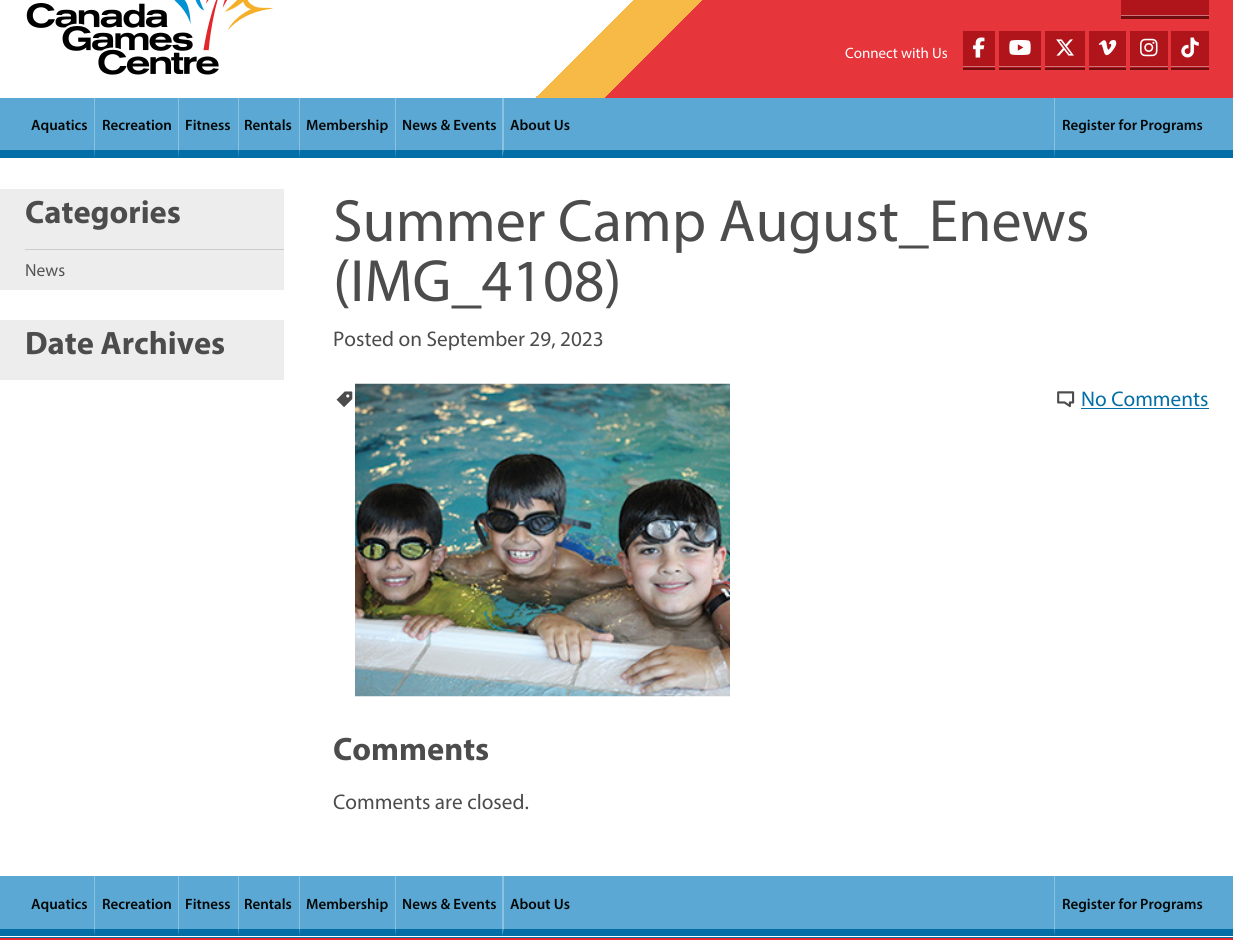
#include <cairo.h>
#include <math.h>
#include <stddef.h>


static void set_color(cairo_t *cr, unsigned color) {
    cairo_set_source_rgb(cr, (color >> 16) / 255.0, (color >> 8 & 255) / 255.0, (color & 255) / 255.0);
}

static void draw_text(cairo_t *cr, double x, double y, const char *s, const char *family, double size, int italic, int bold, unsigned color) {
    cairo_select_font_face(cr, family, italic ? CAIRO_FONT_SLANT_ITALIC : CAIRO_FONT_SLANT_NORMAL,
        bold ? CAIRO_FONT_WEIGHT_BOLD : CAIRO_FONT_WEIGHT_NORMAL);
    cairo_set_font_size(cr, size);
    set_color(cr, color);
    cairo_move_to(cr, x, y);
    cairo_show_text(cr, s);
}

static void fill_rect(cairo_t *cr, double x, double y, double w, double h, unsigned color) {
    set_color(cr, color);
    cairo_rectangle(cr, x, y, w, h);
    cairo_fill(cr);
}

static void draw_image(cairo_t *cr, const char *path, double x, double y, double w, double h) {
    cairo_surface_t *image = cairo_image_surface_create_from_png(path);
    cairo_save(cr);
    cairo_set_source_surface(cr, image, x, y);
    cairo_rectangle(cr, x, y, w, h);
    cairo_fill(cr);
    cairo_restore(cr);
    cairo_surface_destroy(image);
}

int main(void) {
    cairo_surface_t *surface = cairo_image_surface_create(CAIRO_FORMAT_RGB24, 1233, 940);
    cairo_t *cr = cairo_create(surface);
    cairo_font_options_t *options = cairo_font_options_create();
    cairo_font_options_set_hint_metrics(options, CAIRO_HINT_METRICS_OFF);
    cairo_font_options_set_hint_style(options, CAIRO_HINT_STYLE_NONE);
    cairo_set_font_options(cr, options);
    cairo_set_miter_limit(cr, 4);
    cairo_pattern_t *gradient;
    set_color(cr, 0xFFFFFF);
    cairo_paint(cr);
    gradient = cairo_pattern_create_linear(268, -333, 966, 365);
    cairo_pattern_add_color_stop_rgba(gradient, 0, 1, 1, 1, 1);
    cairo_pattern_add_color_stop_rgba(gradient, 0.5, 1, 1, 1, 1);
    cairo_pattern_add_color_stop_rgba(gradient, 0.5, 0.973, 0.729, 0.275, 1);
    cairo_pattern_add_color_stop_rgba(gradient, 0.55, 0.973, 0.729, 0.275, 1);
    cairo_pattern_add_color_stop_rgba(gradient, 0.55, 0.906, 0.208, 0.235, 1);
    cairo_set_source(cr, gradient);
    cairo_pattern_destroy(gradient);
    cairo_rectangle(cr, 536, 0, 697, 98);
    cairo_fill(cr);
    draw_image(cr, "assets/img1.png", 26, 0, 247, 75);
    set_color(cr, 0x6F0D11);
    cairo_new_path(cr);
    cairo_move_to(cr, 1121, -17);
    cairo_line_to(cr, 1121, 19);
    cairo_line_to(cr, 1209, 19);
    cairo_line_to(cr, 1209, -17);
    cairo_line_to(cr, 1209, 16);
    cairo_line_to(cr, 1121, 16);
    cairo_close_path(cr);
    cairo_fill(cr);
    fill_rect(cr, 1121, 0, 88, 15, 0xAF151B);
    fill_rect(cr, 1121, 15, 88, 1, 0xCF7376);
    draw_text(cr, 845, 58, "Connect with Us", "Myriad", 15, 0, 0, 0xFFFFFF);
    fill_rect(cr, 963, 68, 32, 2, 0x6F0D11);
    fill_rect(cr, 963, 31, 32, 37, 0xAF151B);
    fill_rect(cr, 963, 66, 32, 1, 0xCF7376);
    draw_image(cr, "assets/img2.png", 973, 37, 12, 21);
    fill_rect(cr, 999, 68, 42, 2, 0x6F0D11);
    fill_rect(cr, 999, 31, 42, 37, 0xAF151B);
    fill_rect(cr, 999, 66, 42, 1, 0xCF7376);
    draw_image(cr, "assets/img3.png", 1009, 40, 22, 15);
    fill_rect(cr, 1045, 68, 40, 2, 0x6F0D11);
    fill_rect(cr, 1045, 31, 40, 37, 0xAF151B);
    fill_rect(cr, 1045, 66, 40, 1, 0xCF7376);
    draw_image(cr, "assets/img4.png", 1056, 39, 18, 17);
    fill_rect(cr, 1089, 68, 37, 2, 0x6F0D11);
    fill_rect(cr, 1089, 31, 37, 37, 0xAF151B);
    fill_rect(cr, 1089, 66, 37, 1, 0xCF7376);
    draw_image(cr, "assets/img5.png", 1098, 40, 19, 16);
    set_color(cr, 0x6F0D11);
    cairo_new_path(cr);
    cairo_move_to(cr, 1130, 67.5);
    cairo_line_to(cr, 1130, 70);
    cairo_line_to(cr, 1168, 70);
    cairo_line_to(cr, 1168, 34);
    cairo_line_to(cr, 1167.5, 34);
    cairo_line_to(cr, 1167.5, 67.5);
    cairo_close_path(cr);
    cairo_fill(cr);
    fill_rect(cr, 1130, 31, 38, 37, 0xAF151B);
    fill_rect(cr, 1130, 66, 38, 1, 0xCF7376);
    draw_image(cr, "assets/img6.png", 1140, 38, 18, 19);
    set_color(cr, 0x6F0D11);
    cairo_new_path(cr);
    cairo_move_to(cr, 1171, 34);
    cairo_line_to(cr, 1171, 70);
    cairo_line_to(cr, 1209, 70);
    cairo_line_to(cr, 1209, 34);
    cairo_line_to(cr, 1209, 67.5);
    cairo_line_to(cr, 1171, 67.5);
    cairo_close_path(cr);
    cairo_fill(cr);
    fill_rect(cr, 1171, 31, 38, 37, 0xAF151B);
    fill_rect(cr, 1171, 66, 38, 1, 0xCF7376);
    draw_image(cr, "assets/img7.png", 1181, 37, 18, 21);
    fill_rect(cr, 0, 98, 1233, 52, 0x5AA8D3);
    fill_rect(cr, 0, 150, 1233, 8, 0x046EA7);
    draw_text(cr, 31, 130, "Aquatics", "Myriad SemiBold", 15, 0, 0, 0x040707);
    cairo_set_source_rgba(cr, 1, 1, 1, 0.3);
    cairo_new_path(cr);
    cairo_move_to(cr, 94, 158);
    cairo_line_to(cr, 94, 98);
    cairo_line_to(cr, 95, 98);
    cairo_line_to(cr, 95, 150);
    cairo_close_path(cr);
    cairo_fill(cr);
    draw_text(cr, 102, 130, "Recreation", "Myriad SemiBold", 15, 0, 0, 0x040707);
    cairo_set_source_rgba(cr, 1, 1, 1, 0.3);
    cairo_new_path(cr);
    cairo_move_to(cr, 178, 158);
    cairo_line_to(cr, 178, 98);
    cairo_line_to(cr, 179, 98);
    cairo_line_to(cr, 179, 150);
    cairo_close_path(cr);
    cairo_fill(cr);
    draw_text(cr, 185, 130, "Fitness", "Myriad SemiBold", 15, 0, 0, 0x040707);
    cairo_set_source_rgba(cr, 1, 1, 1, 0.3);
    cairo_new_path(cr);
    cairo_move_to(cr, 238, 158);
    cairo_line_to(cr, 238, 98);
    cairo_line_to(cr, 239, 98);
    cairo_line_to(cr, 239, 150);
    cairo_close_path(cr);
    cairo_fill(cr);
    draw_text(cr, 244, 130, "Rentals", "Myriad SemiBold", 15, 0, 0, 0x040707);
    cairo_set_source_rgba(cr, 1, 1, 1, 0.3);
    cairo_new_path(cr);
    cairo_move_to(cr, 299, 158);
    cairo_line_to(cr, 299, 98);
    cairo_line_to(cr, 300, 98);
    cairo_line_to(cr, 300, 150);
    cairo_close_path(cr);
    cairo_fill(cr);
    draw_text(cr, 306, 130, "Membership", "Myriad SemiBold", 15, 0, 0, 0x040707);
    cairo_set_source_rgba(cr, 1, 1, 1, 0.3);
    cairo_new_path(cr);
    cairo_move_to(cr, 395, 158);
    cairo_line_to(cr, 395, 98);
    cairo_line_to(cr, 396, 98);
    cairo_line_to(cr, 396, 150);
    cairo_close_path(cr);
    cairo_fill(cr);
    draw_text(cr, 402, 130, "News & Events", "Myriad SemiBold", 15, 0, 0, 0x040707);
    cairo_set_source_rgba(cr, 1, 1, 1, 0.3);
    cairo_new_path(cr);
    cairo_move_to(cr, 502, 158);
    cairo_line_to(cr, 502, 98);
    cairo_line_to(cr, 504, 98);
    cairo_line_to(cr, 504, 150);
    cairo_close_path(cr);
    cairo_fill(cr);
    draw_text(cr, 510, 130, "About Us", "Myriad SemiBold", 15, 0, 0, 0x040707);
    cairo_set_source_rgba(cr, 1, 1, 1, 0.3);
    cairo_new_path(cr);
    cairo_move_to(cr, 1054, 158);
    cairo_line_to(cr, 1054, 98);
    cairo_line_to(cr, 1055, 98);
    cairo_line_to(cr, 1055, 150);
    cairo_close_path(cr);
    cairo_fill(cr);
    draw_text(cr, 1062, 130, "Register for Programs", "Myriad SemiBold", 15, 0, 0, 0x040707);
    fill_rect(cr, 0, 189, 284, 101, 0xEDEDED);
    draw_text(cr, 25, 223, "Categories", "Myriad", 32.5, 0, 1, 0x4C4C4C);
    fill_rect(cr, 25, 249, 259, 1, 0xCCCCCC);
    draw_text(cr, 25, 276, "News", "Myriad", 17.5, 0, 0, 0x545454);
    fill_rect(cr, 0, 320, 284, 60, 0xEDEDED);
    draw_text(cr, 25, 354, "Date Archives", "Myriad", 32.5, 0, 1, 0x4C4C4C);
    draw_text(cr, 333, 241, "Summer Camp August_Enews", "Myriad", 60, 0, 0, 0x4C4C4C);
    draw_text(cr, 333, 301, "(IMG_4108)", "Myriad", 60, 0, 0, 0x4C4C4C);
    draw_text(cr, 333, 346, "Posted on September 29, 2023", "Myriad", 21.25, 0, 0, 0x4C4C4C);
    draw_image(cr, "assets/img8.png", 336, 391, 17, 17);
    draw_image(cr, "assets/img9.png", 1057, 391, 18, 17);
    draw_text(cr, 1081, 406, "No Comments", "Myriad", 21.25, 0, 0, 0x046EA7);
    fill_rect(cr, 1081, 408, 128, 1, 0x046EA7);
    draw_image(cr, "assets/img10.png", 355, 383, 375, 314);
    draw_text(cr, 333, 760, "Comments", "Myriad", 32.5, 0, 1, 0x4C4C4C);
    draw_text(cr, 333, 809, "Comments are closed.", "Myriad", 21.25, 0, 0, 0x4C4C4C);
    fill_rect(cr, 0, 876, 1233, 53, 0x5AA8D3);
    fill_rect(cr, 0, 929, 1233, 9, 0x046EA7);
    fill_rect(cr, 0, 936, 1233, 1, 0xFFFFFF);
    draw_text(cr, 31, 909, "Aquatics", "Myriad SemiBold", 15, 0, 0, 0x040707);
    cairo_set_source_rgba(cr, 1, 1, 1, 0.3);
    cairo_new_path(cr);
    cairo_move_to(cr, 94, 936);
    cairo_line_to(cr, 94, 876);
    cairo_line_to(cr, 95, 876);
    cairo_line_to(cr, 95, 929);
    cairo_close_path(cr);
    cairo_fill(cr);
    draw_text(cr, 102, 909, "Recreation", "Myriad SemiBold", 15, 0, 0, 0x040707);
    cairo_set_source_rgba(cr, 1, 1, 1, 0.3);
    cairo_new_path(cr);
    cairo_move_to(cr, 178, 936);
    cairo_line_to(cr, 178, 876);
    cairo_line_to(cr, 179, 876);
    cairo_line_to(cr, 179, 929);
    cairo_close_path(cr);
    cairo_fill(cr);
    draw_text(cr, 185, 909, "Fitness", "Myriad SemiBold", 15, 0, 0, 0x040707);
    cairo_set_source_rgba(cr, 1, 1, 1, 0.3);
    cairo_new_path(cr);
    cairo_move_to(cr, 238, 936);
    cairo_line_to(cr, 238, 876);
    cairo_line_to(cr, 239, 876);
    cairo_line_to(cr, 239, 929);
    cairo_close_path(cr);
    cairo_fill(cr);
    draw_text(cr, 244, 909, "Rentals", "Myriad SemiBold", 15, 0, 0, 0x040707);
    cairo_set_source_rgba(cr, 1, 1, 1, 0.3);
    cairo_new_path(cr);
    cairo_move_to(cr, 299, 936);
    cairo_line_to(cr, 299, 876);
    cairo_line_to(cr, 300, 876);
    cairo_line_to(cr, 300, 929);
    cairo_close_path(cr);
    cairo_fill(cr);
    draw_text(cr, 306, 909, "Membership", "Myriad SemiBold", 15, 0, 0, 0x040707);
    cairo_set_source_rgba(cr, 1, 1, 1, 0.3);
    cairo_new_path(cr);
    cairo_move_to(cr, 395, 936);
    cairo_line_to(cr, 395, 876);
    cairo_line_to(cr, 396, 876);
    cairo_line_to(cr, 396, 929);
    cairo_close_path(cr);
    cairo_fill(cr);
    draw_text(cr, 402, 909, "News & Events", "Myriad SemiBold", 15, 0, 0, 0x040707);
    cairo_set_source_rgba(cr, 1, 1, 1, 0.3);
    cairo_new_path(cr);
    cairo_move_to(cr, 502, 936);
    cairo_line_to(cr, 502, 876);
    cairo_line_to(cr, 504, 876);
    cairo_line_to(cr, 504, 929);
    cairo_close_path(cr);
    cairo_fill(cr);
    draw_text(cr, 510, 909, "About Us", "Myriad SemiBold", 15, 0, 0, 0x040707);
    cairo_set_source_rgba(cr, 1, 1, 1, 0.3);
    cairo_new_path(cr);
    cairo_move_to(cr, 1054, 936);
    cairo_line_to(cr, 1054, 876);
    cairo_line_to(cr, 1055, 876);
    cairo_line_to(cr, 1055, 929);
    cairo_close_path(cr);
    cairo_fill(cr);
    draw_text(cr, 1062, 909, "Register for Programs", "Myriad SemiBold", 15, 0, 0, 0x040707);
    fill_rect(cr, 0, 938, 1233, 2, 0xE5262D);
    cairo_surface_write_to_png(surface, "output.png");
    cairo_font_options_destroy(options);
    cairo_destroy(cr);
    cairo_surface_destroy(surface);
    return 0;
}
